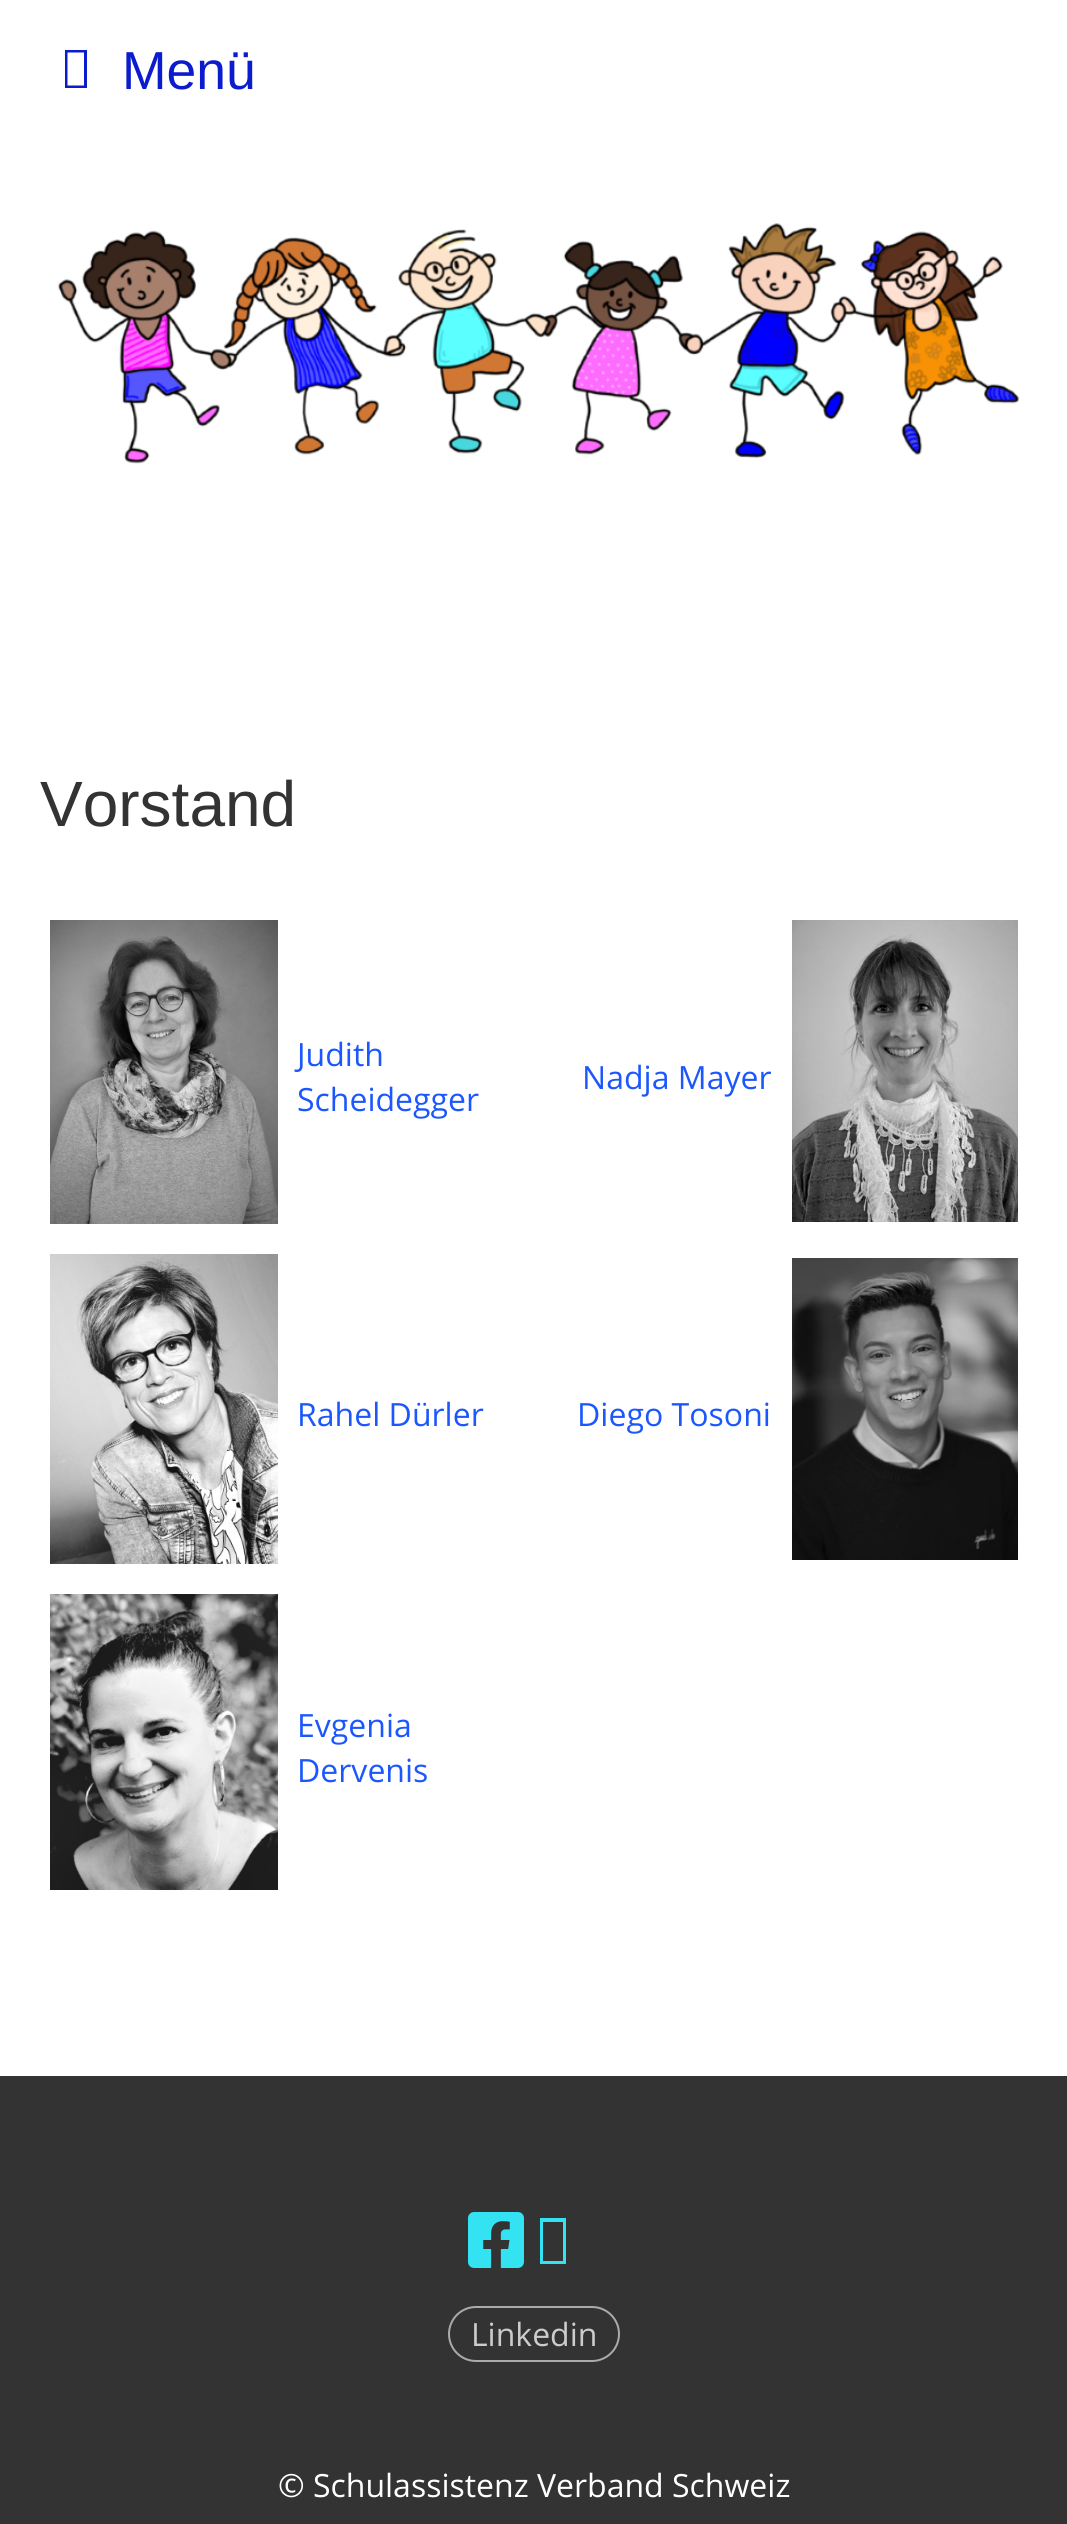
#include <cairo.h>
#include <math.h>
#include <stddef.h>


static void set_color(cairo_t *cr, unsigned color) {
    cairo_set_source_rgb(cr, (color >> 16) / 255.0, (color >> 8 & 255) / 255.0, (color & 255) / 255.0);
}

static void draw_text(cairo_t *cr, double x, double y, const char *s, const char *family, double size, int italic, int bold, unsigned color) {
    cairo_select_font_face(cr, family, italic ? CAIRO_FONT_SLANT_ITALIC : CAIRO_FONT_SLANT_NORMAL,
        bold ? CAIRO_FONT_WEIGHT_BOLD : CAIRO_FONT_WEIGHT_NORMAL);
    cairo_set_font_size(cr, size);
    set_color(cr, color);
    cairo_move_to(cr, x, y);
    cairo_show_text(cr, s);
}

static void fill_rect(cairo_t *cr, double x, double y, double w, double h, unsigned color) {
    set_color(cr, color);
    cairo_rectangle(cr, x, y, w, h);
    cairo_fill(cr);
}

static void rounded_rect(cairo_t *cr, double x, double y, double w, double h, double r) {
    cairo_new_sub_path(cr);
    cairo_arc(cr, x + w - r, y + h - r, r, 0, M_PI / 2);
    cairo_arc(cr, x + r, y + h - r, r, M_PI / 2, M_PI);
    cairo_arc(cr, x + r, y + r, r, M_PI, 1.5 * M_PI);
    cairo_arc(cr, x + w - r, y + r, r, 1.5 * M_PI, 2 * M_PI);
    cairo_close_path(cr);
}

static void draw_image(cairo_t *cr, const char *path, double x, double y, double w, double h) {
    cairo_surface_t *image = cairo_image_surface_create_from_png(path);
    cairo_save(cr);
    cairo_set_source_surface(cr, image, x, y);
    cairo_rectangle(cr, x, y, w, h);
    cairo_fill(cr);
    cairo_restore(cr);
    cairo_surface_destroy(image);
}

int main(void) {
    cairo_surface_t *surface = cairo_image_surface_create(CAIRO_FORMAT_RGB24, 1067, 2524);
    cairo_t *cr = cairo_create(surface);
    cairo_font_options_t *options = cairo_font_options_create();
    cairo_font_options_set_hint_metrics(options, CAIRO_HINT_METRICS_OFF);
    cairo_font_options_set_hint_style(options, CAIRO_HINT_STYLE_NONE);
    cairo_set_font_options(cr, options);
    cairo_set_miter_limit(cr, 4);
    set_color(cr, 0xFFFFFF);
    cairo_paint(cr);
    set_color(cr, 0x0B1CCF);
    cairo_new_path(cr);
    cairo_move_to(cr, 65, 88);
    cairo_line_to(cr, 65, 50);
    cairo_line_to(cr, 87, 50);
    cairo_line_to(cr, 87, 88);
    cairo_close_path(cr);
    cairo_move_to(cr, 67.5, 85.5);
    cairo_line_to(cr, 84, 85.5);
    cairo_line_to(cr, 84, 52.5);
    cairo_line_to(cr, 67.5, 52.5);
    cairo_close_path(cr);
    cairo_fill(cr);
    draw_text(cr, 122, 89, "Menü", "Liberation Sans", 53.5, 0, 0, 0x0B1CCF);
    draw_image(cr, "assets/img1.png", 57, 223, 963, 241);
    draw_text(cr, 40, 826, "Vorstand", "Liberation Sans", 64, 0, 0, 0x333333);
    draw_image(cr, "assets/img2.png", 50, 920, 228, 304);
    draw_text(cr, 297, 1066, "Judith", "Open Sans", 32, 0, 0, 0x1B57FC);
    draw_text(cr, 297, 1111, "Scheidegger", "Open Sans", 32, 0, 0, 0x1B57FC);
    draw_text(cr, 582, 1089, "Nadja Mayer", "Open Sans", 32, 0, 0, 0x1B57FC);
    draw_image(cr, "assets/img3.png", 792, 920, 226, 302);
    draw_image(cr, "assets/img4.png", 50, 1254, 228, 310);
    draw_text(cr, 297, 1426, "Rahel Dürler", "Open Sans", 32, 0, 0, 0x1B57FC);
    draw_text(cr, 577, 1426, "Diego Tosoni", "Open Sans", 32, 0, 0, 0x1B57FC);
    draw_image(cr, "assets/img5.png", 792, 1258, 226, 302);
    draw_image(cr, "assets/img6.png", 50, 1594, 228, 296);
    draw_text(cr, 297, 1737, "Evgenia", "Open Sans", 32, 0, 0, 0x1B57FC);
    draw_text(cr, 297, 1782, "Dervenis", "Open Sans", 32, 0, 0, 0x1B57FC);
    fill_rect(cr, 0, 2076, 1067, 448, 0x333333);
    draw_image(cr, "assets/img7.png", 468, 2212, 56, 56);
    set_color(cr, 0x34E3F2);
    cairo_new_path(cr);
    cairo_move_to(cr, 540, 2264);
    cairo_line_to(cr, 540, 2218);
    cairo_line_to(cr, 566, 2218);
    cairo_line_to(cr, 566, 2264);
    cairo_close_path(cr);
    cairo_move_to(cr, 543, 2261);
    cairo_line_to(cr, 563, 2261);
    cairo_line_to(cr, 563, 2222);
    cairo_line_to(cr, 543, 2222);
    cairo_close_path(cr);
    cairo_fill(cr);
    rounded_rect(cr, 449, 2307, 170, 54, 27);
    set_color(cr, 0xAAAAAA);
    cairo_stroke(cr);
    draw_text(cr, 471, 2346, "Linkedin", "Open Sans", 32, 0, 0, 0xCCCCCC);
    draw_text(cr, 278, 2497, "© Schulassistenz Verband Schweiz", "Open Sans", 32, 0, 0, 0xFFFFFF);
    cairo_surface_write_to_png(surface, "output.png");
    cairo_font_options_destroy(options);
    cairo_destroy(cr);
    cairo_surface_destroy(surface);
    return 0;
}
